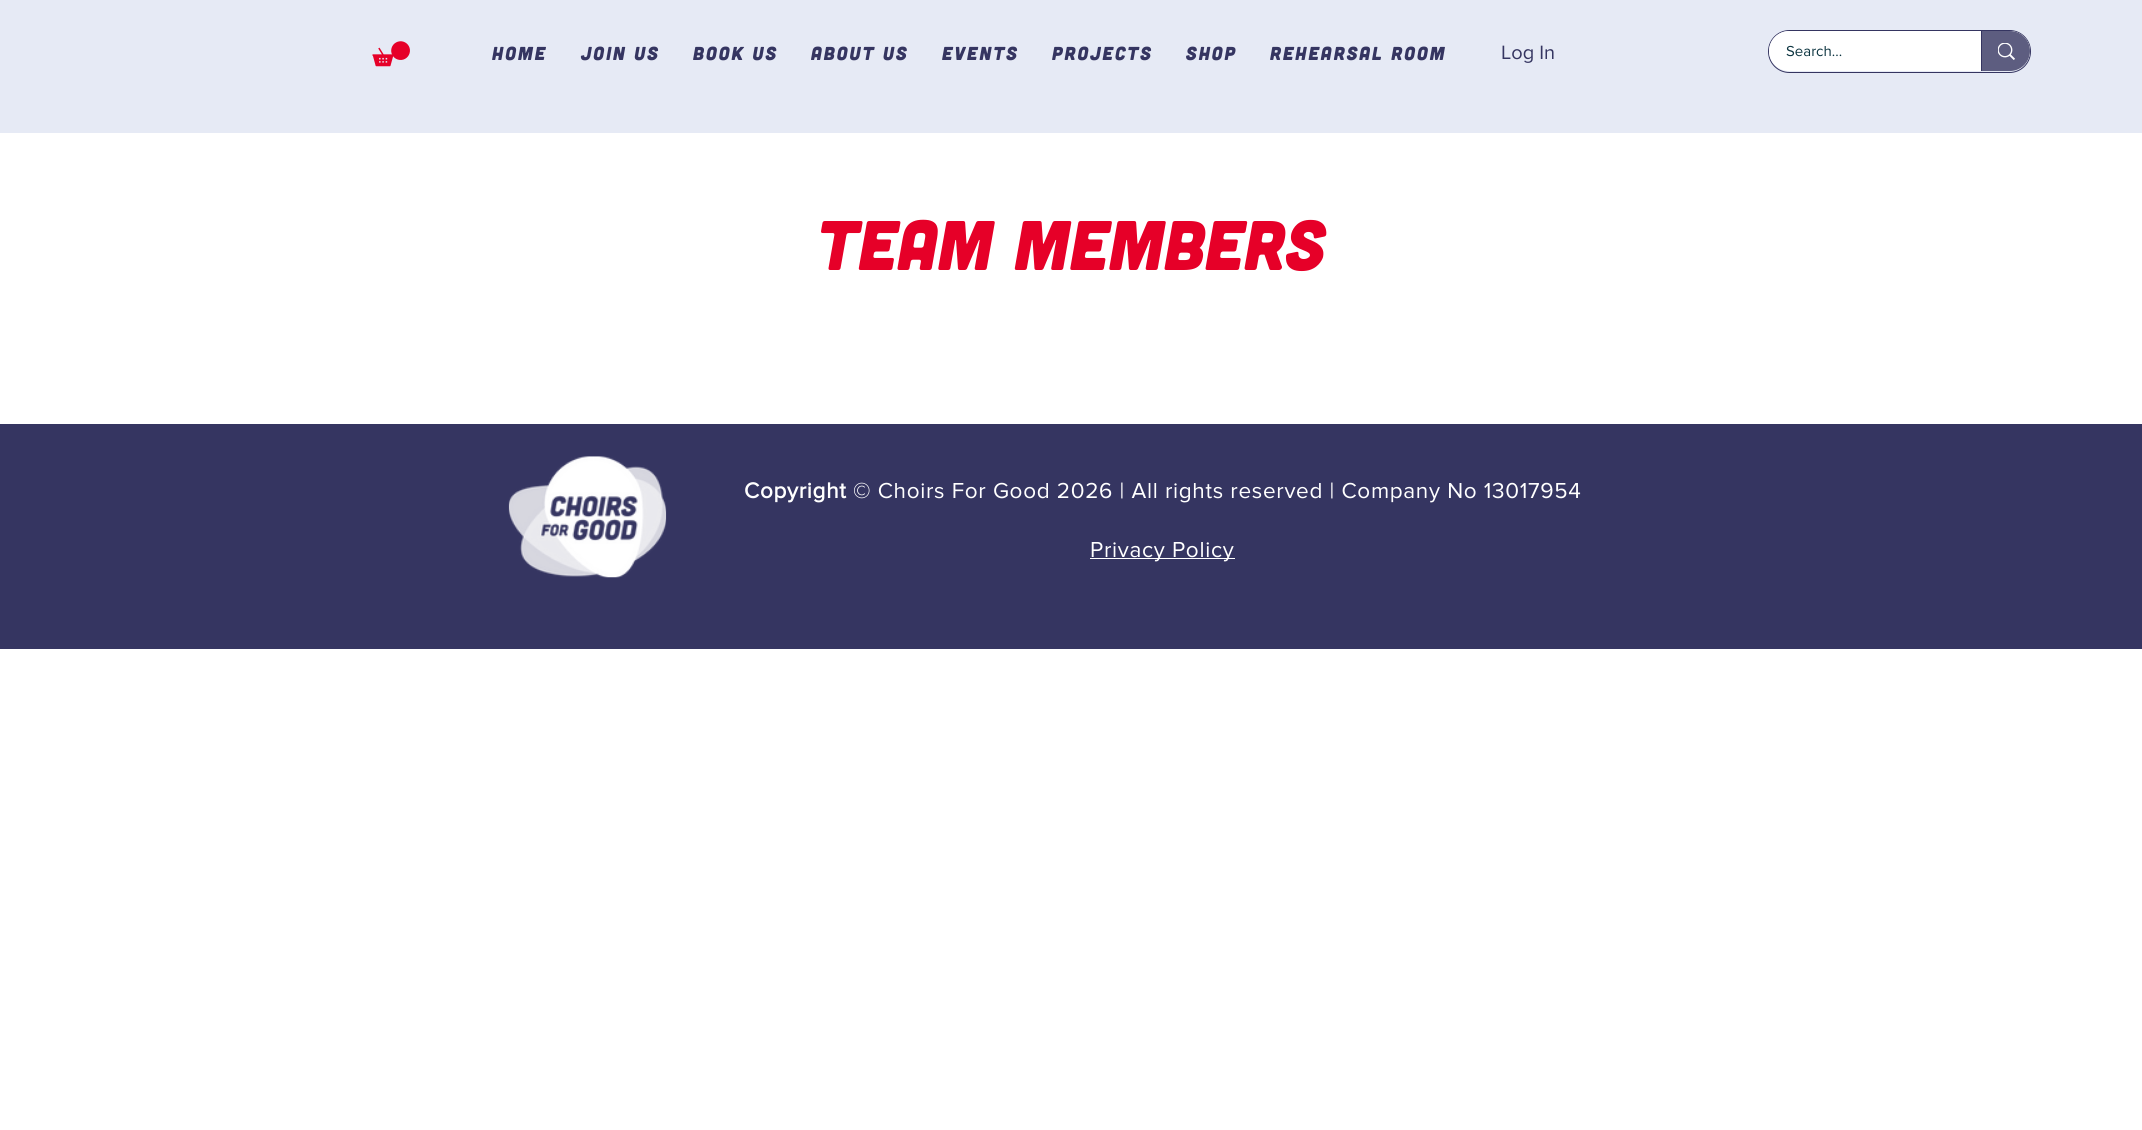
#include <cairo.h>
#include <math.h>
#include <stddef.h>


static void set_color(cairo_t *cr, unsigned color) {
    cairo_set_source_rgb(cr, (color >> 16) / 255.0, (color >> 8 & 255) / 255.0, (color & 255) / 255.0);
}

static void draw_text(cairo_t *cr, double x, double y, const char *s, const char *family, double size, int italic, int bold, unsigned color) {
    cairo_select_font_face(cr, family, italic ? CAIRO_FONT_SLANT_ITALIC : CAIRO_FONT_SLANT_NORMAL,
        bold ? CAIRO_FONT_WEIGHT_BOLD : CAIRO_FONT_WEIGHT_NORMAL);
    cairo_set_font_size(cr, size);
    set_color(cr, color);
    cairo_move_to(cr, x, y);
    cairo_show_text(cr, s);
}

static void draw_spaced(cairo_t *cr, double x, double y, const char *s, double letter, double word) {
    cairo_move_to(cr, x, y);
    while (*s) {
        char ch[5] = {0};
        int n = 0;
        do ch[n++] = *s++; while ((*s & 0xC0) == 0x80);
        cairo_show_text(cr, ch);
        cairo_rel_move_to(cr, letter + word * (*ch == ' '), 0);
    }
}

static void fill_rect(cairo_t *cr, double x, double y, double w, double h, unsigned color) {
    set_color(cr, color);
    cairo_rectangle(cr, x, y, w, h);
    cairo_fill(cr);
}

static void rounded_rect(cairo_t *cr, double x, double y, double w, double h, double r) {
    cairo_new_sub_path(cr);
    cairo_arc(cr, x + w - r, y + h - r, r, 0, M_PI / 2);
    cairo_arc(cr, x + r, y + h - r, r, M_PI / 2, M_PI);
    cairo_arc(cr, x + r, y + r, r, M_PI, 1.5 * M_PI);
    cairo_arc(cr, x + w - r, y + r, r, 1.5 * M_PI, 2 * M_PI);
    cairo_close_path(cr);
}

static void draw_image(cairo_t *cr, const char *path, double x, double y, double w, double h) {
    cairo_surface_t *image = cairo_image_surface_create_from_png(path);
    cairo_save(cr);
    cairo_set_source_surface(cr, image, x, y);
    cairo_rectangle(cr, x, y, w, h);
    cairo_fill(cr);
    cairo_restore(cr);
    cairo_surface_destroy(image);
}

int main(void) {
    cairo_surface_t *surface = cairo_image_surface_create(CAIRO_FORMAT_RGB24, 2142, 1130);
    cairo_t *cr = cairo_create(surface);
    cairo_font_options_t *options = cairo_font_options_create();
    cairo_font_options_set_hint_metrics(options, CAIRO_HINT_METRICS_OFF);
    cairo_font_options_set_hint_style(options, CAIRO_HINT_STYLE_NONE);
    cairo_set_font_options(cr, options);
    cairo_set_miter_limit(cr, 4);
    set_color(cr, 0xFFFFFF);
    cairo_paint(cr);
    fill_rect(cr, 0, 0, 2142, 133, 0xE6EAF5);
    draw_image(cr, "assets/img1.png", 372, 41, 38, 26);
    cairo_select_font_face(cr, "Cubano", CAIRO_FONT_SLANT_NORMAL, CAIRO_FONT_WEIGHT_NORMAL);
    cairo_set_font_size(cr, 18.75);
    set_color(cr, 0x353561);
    draw_spaced(cr, 492, 60, "Home", 1.9, 0);
    draw_spaced(cr, 581, 60, "Join Us", 1.9, 0);
    draw_spaced(cr, 693, 60, "Book Us", 1.9, 0);
    draw_spaced(cr, 811, 60, "About Us", 1.9, 0);
    draw_spaced(cr, 942, 60, "Events", 1.9, 0);
    draw_spaced(cr, 1052, 60, "Projects", 1.9, 0);
    draw_spaced(cr, 1186, 60, "Shop", 1.9, 0);
    draw_spaced(cr, 1270, 60, "Rehearsal Room", 1.9, 0);
    draw_text(cr, 1501, 59, "Log In", "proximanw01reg", 20, 0, 0, 0x353561);
    rounded_rect(cr, 1768.5, 30.5, 262, 42, 21);
    cairo_set_line_width(cr, 1);
    cairo_stroke(cr);
    set_color(cr, 0xFFFFFF);
    rounded_rect(cr, 1769, 31, 261, 40, 20);
    cairo_fill(cr);
    draw_text(cr, 1786, 56, "Search...", "proximanw01reg", 15, 0, 0, 0x0C3440);
    cairo_set_source_rgba(cr, 0.208, 0.208, 0.38, 0.8);
    cairo_new_path(cr);
    cairo_move_to(cr, 1981, 31);
    cairo_line_to(cr, 2010, 31);
    cairo_curve_to(cr, 2021, 31, 2030, 40, 2030, 51);
    cairo_curve_to(cr, 2030, 62, 2021, 71, 2010, 71);
    cairo_line_to(cr, 1981, 71);
    cairo_close_path(cr);
    cairo_fill(cr);
    fill_rect(cr, 1981, 31, 1, 40, 0x353561);
    draw_image(cr, "assets/img2.png", 1998, 43, 17, 17);
    draw_text(cr, 817, 270, "Team Members", "Cubano", 70, 0, 0, 0xE60028);
    fill_rect(cr, 0, 424, 2142, 225, 0x353561);
    draw_image(cr, "assets/img3.png", 508, 456, 159, 122);
    cairo_select_font_face(cr, "proximanw01reg", CAIRO_FONT_SLANT_NORMAL, CAIRO_FONT_WEIGHT_BOLD);
    cairo_set_font_size(cr, 22.5);
    set_color(cr, 0xFFFFFF);
    draw_spaced(cr, 744, 498, "Copyright", 0.68, 0);
    cairo_select_font_face(cr, "proximanw01reg", CAIRO_FONT_SLANT_NORMAL, CAIRO_FONT_WEIGHT_NORMAL);
    draw_spaced(cr, 853, 498, "© Choirs For Good 2026 | All rights reserved | Company No 13017954", 0.68, 0);
    fill_rect(cr, 1090, 558, 145, 1, 0xFFFFFF);
    draw_spaced(cr, 1090, 557, "Privacy Policy", 0.68, 0);
    cairo_surface_write_to_png(surface, "output.png");
    cairo_font_options_destroy(options);
    cairo_destroy(cr);
    cairo_surface_destroy(surface);
    return 0;
}
